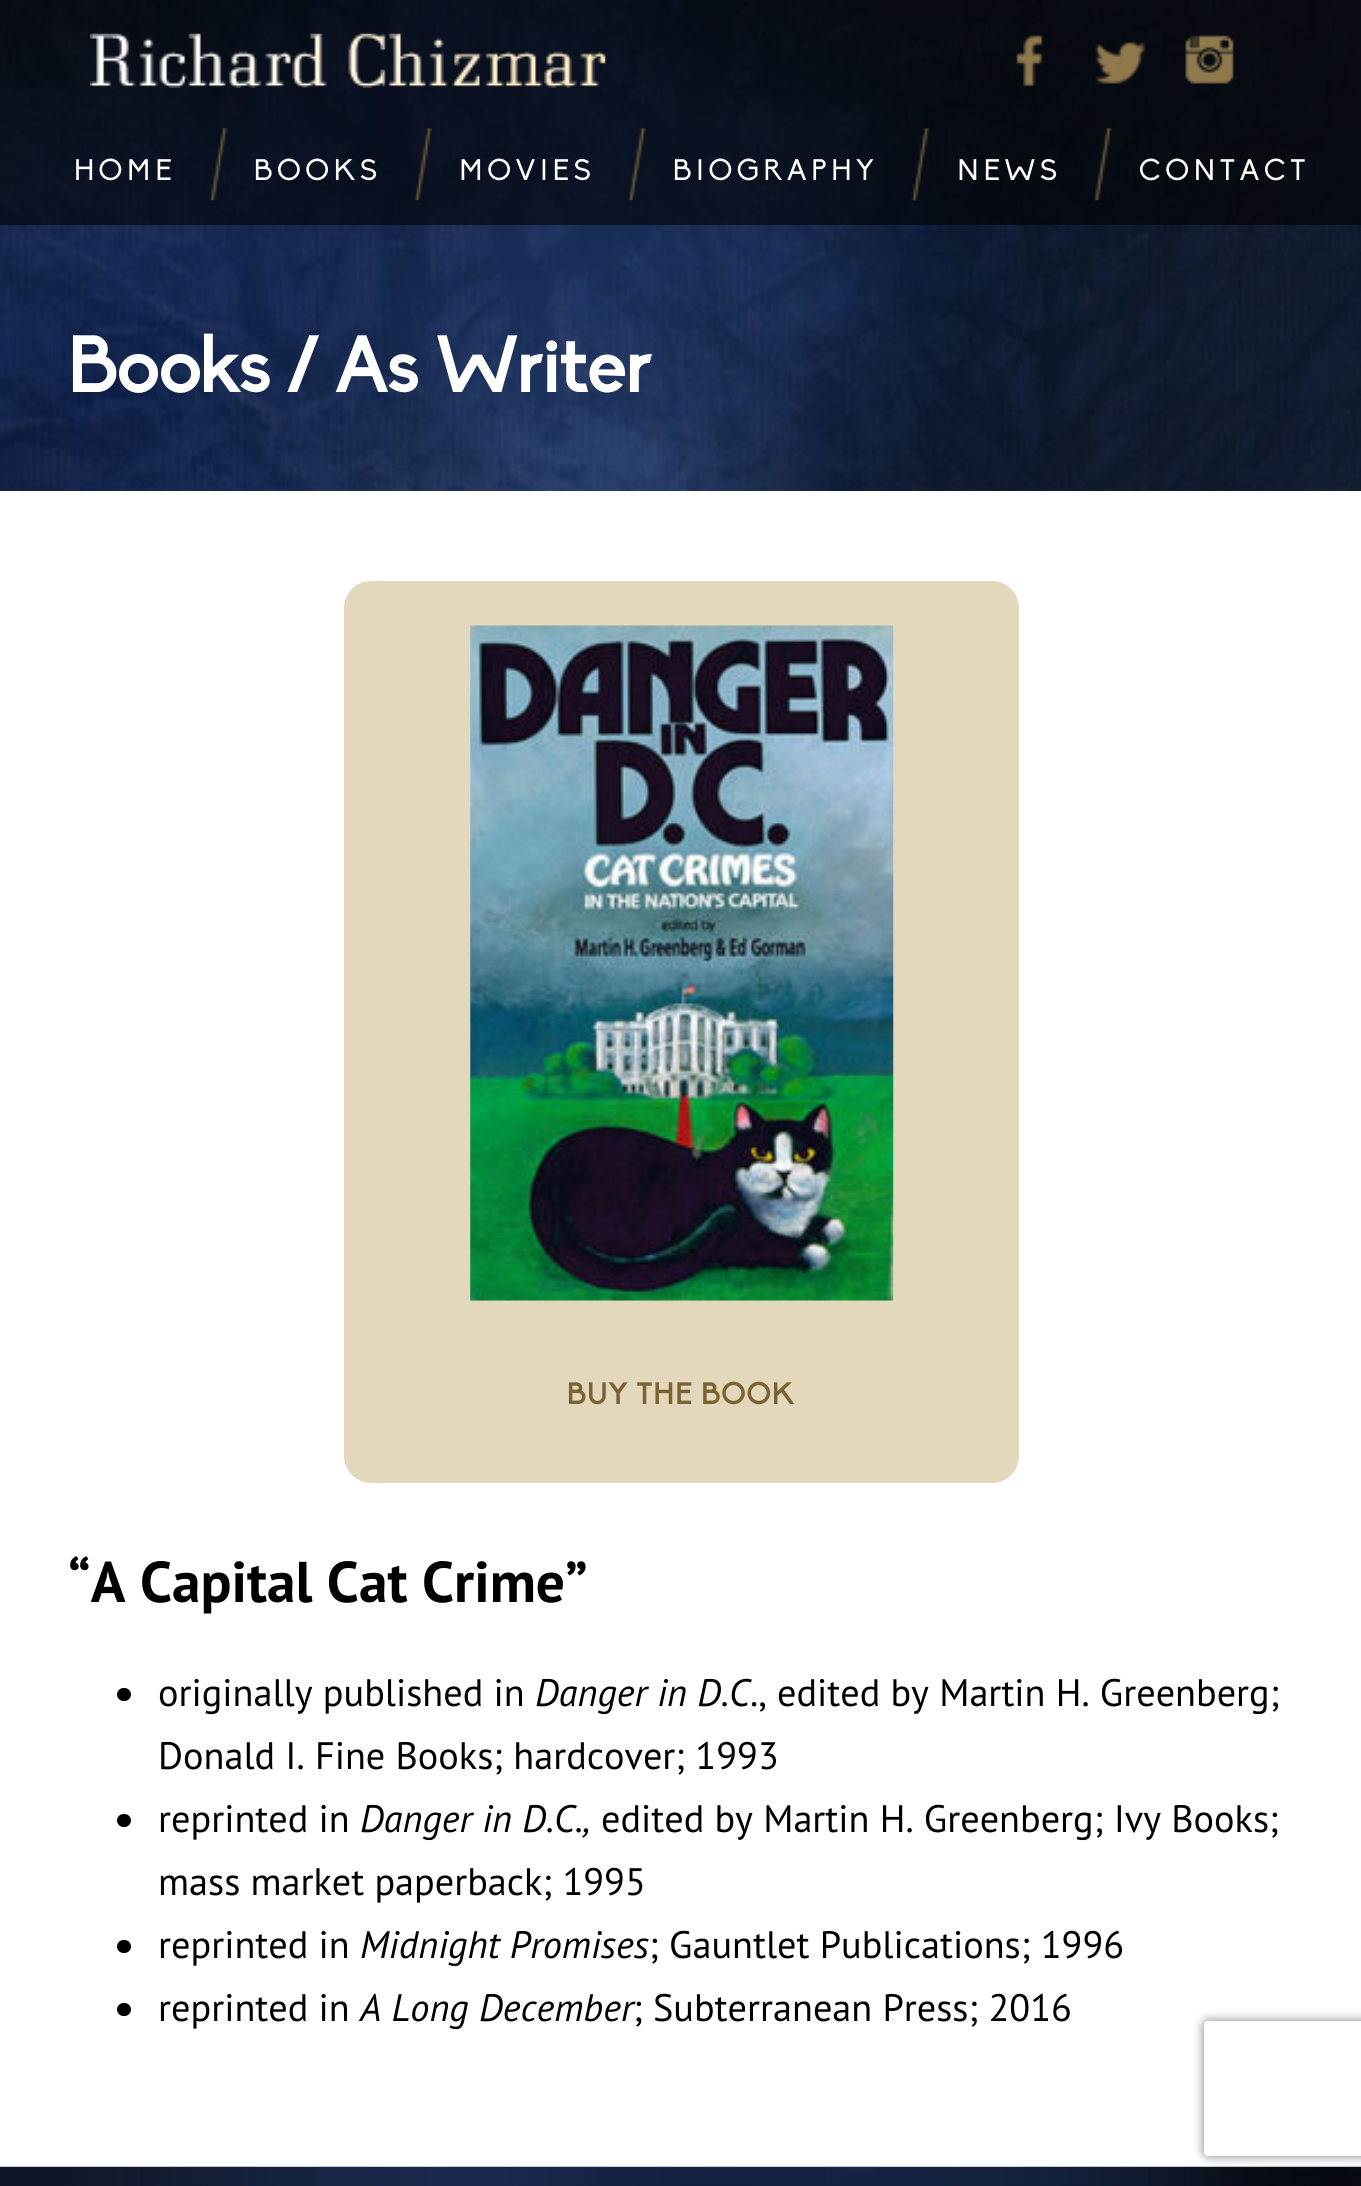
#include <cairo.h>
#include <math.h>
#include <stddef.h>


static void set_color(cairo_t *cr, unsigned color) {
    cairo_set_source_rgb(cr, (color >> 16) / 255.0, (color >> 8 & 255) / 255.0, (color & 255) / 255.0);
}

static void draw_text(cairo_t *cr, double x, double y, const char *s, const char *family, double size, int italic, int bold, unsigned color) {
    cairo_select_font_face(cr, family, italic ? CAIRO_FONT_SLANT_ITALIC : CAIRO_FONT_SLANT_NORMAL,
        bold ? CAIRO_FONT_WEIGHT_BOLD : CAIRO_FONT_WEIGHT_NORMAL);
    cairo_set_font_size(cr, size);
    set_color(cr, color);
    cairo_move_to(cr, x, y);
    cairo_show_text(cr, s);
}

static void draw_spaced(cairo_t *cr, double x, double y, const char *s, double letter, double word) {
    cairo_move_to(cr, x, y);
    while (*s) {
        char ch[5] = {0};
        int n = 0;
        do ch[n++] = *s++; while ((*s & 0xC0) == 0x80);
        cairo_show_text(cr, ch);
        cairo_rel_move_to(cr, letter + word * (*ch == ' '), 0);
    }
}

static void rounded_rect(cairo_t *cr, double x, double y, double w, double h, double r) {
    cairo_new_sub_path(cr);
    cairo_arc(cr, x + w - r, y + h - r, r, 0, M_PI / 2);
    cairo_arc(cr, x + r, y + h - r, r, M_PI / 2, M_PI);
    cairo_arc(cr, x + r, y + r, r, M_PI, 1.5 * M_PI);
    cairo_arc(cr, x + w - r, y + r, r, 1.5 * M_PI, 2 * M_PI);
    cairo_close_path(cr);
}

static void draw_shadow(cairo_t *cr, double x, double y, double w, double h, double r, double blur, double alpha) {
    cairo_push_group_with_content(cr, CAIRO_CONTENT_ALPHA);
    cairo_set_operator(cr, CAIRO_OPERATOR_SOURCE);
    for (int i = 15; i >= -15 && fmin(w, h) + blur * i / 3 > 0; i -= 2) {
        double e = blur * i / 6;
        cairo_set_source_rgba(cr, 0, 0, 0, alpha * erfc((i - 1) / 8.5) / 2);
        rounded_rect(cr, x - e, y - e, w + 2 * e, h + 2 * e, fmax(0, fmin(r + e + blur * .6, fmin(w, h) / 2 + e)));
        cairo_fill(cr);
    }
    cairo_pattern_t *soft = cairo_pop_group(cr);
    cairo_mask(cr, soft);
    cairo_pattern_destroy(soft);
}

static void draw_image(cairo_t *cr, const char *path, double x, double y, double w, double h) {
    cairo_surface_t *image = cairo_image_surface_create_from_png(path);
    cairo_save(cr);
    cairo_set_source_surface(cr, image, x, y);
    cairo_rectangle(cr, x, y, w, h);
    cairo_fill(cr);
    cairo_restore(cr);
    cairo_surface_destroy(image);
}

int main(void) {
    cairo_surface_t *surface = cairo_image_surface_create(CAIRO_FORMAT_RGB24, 1361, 2186);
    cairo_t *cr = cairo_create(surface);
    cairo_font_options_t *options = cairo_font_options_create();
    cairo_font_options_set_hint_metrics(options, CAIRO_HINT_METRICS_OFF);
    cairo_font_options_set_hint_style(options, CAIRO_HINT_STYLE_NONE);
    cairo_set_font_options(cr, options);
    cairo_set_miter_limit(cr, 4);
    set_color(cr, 0xFFFFFF);
    cairo_paint(cr);
    draw_image(cr, "assets/img10.png", 0, 0, 1361, 491);
    cairo_set_source_rgba(cr, 0, 0, 0, 0.6);
    cairo_rectangle(cr, 0, 0, 1361, 225);
    cairo_fill(cr);
    draw_image(cr, "assets/img1.png", 90, 33, 516, 55);
    draw_image(cr, "assets/img2.png", 1016, 35, 27, 52);
    draw_image(cr, "assets/img3.png", 1095, 42, 51, 42);
    draw_image(cr, "assets/img4.png", 1185, 35, 49, 49);
    cairo_select_font_face(cr, "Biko", CAIRO_FONT_SLANT_NORMAL, CAIRO_FONT_WEIGHT_NORMAL);
    cairo_set_font_size(cr, 29.25);
    set_color(cr, 0xFFFFFF);
    draw_spaced(cr, 74, 180, "HOME", 4.5, 0);
    draw_image(cr, "assets/img5.png", 209, 128, 19, 73);
    draw_spaced(cr, 254, 180, "BOOKS", 4.5, 0);
    draw_image(cr, "assets/img6.png", 414, 128, 18, 73);
    draw_spaced(cr, 459, 180, "MOVIES", 4.5, 0);
    draw_image(cr, "assets/img7.png", 627, 128, 19, 73);
    draw_spaced(cr, 673, 180, "BIOGRAPHY", 4.5, 0);
    draw_image(cr, "assets/img8.png", 911, 128, 19, 73);
    draw_spaced(cr, 957, 180, "NEWS", 4.5, 0);
    draw_image(cr, "assets/img9.png", 1093, 128, 19, 73);
    draw_spaced(cr, 1139, 180, "CONTACT", 4.5, 0);
    draw_text(cr, 68, 392, "Books / As Writer", "Biko", 76.5, 0, 1, 0xFFFFFF);
    set_color(cr, 0xE3D7BC);
    rounded_rect(cr, 344, 581, 675, 902, 27);
    cairo_fill(cr);
    draw_image(cr, "assets/img11.png", 470, 625, 424, 676);
    cairo_set_font_size(cr, 29.25);
    set_color(cr, 0x7A6331);
    draw_spaced(cr, 567, 1404, "BUY THE BOOK", 1.5, 0);
    draw_text(cr, 68, 1602, "“A Capital Cat Crime”", "PT Sans", 57.4, 0, 1, 0x000000);
    rounded_rect(cr, 117, 1688, 14, 13, 6.5);
    cairo_fill(cr);
    draw_text(cr, 158, 1706, "originally published in", "PT Sans", 38.25, 0, 0, 0x000000);
    draw_text(cr, 535, 1706, "Danger in D.C", "PT Sans", 38.25, 1, 0, 0x000000);
    draw_text(cr, 750, 1706, "., edited by Martin H. Greenberg;", "PT Sans", 38.25, 0, 0, 0x000000);
    draw_text(cr, 158, 1769, "Donald I. Fine Books; hardcover; 1993", "PT Sans", 38.25, 0, 0, 0x000000);
    rounded_rect(cr, 117, 1814, 14, 13, 6.5);
    cairo_fill(cr);
    draw_text(cr, 158, 1832, "reprinted in", "PT Sans", 38.25, 0, 0, 0x000000);
    draw_text(cr, 360, 1832, "Danger in D.C.,", "PT Sans", 38.25, 1, 0, 0x000000);
    draw_text(cr, 601, 1832, "edited by Martin H. Greenberg; Ivy Books;", "PT Sans", 38.25, 0, 0, 0x000000);
    draw_text(cr, 158, 1895, "mass market paperback; 1995", "PT Sans", 38.25, 0, 0, 0x000000);
    rounded_rect(cr, 117, 1940, 14, 13, 6.5);
    cairo_fill(cr);
    draw_text(cr, 158, 1958, "reprinted in", "PT Sans", 38.25, 0, 0, 0x000000);
    draw_text(cr, 360, 1958, "Midnight Promises", "PT Sans", 38.25, 1, 0, 0x000000);
    draw_text(cr, 649, 1958, "; Gauntlet Publications; 1996", "PT Sans", 38.25, 0, 0, 0x000000);
    rounded_rect(cr, 117, 2003, 14, 13, 6.5);
    cairo_fill(cr);
    draw_text(cr, 158, 2021, "reprinted in", "PT Sans", 38.25, 0, 0, 0x000000);
    draw_text(cr, 360, 2021, "A Long December", "PT Sans", 38.25, 1, 0, 0x000000);
    draw_text(cr, 633, 2021, "; Subterranean Press; 2016", "PT Sans", 38.25, 0, 0, 0x000000);
    draw_image(cr, "assets/img12.png", 0, 2166, 1361, 20);
    cairo_save(cr);
    cairo_set_fill_rule(cr, CAIRO_FILL_RULE_EVEN_ODD);
    cairo_new_path(cr);
    cairo_move_to(cr, 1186, 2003);
    cairo_line_to(cr, 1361, 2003);
    cairo_line_to(cr, 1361, 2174);
    cairo_line_to(cr, 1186, 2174);
    cairo_close_path(cr);
    cairo_move_to(cr, 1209, 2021);
    cairo_line_to(cr, 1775, 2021);
    cairo_curve_to(cr, 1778, 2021, 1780, 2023, 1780, 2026);
    cairo_line_to(cr, 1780, 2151);
    cairo_curve_to(cr, 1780, 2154, 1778, 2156, 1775, 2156);
    cairo_line_to(cr, 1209, 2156);
    cairo_curve_to(cr, 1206, 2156, 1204, 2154, 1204, 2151);
    cairo_line_to(cr, 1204, 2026);
    cairo_curve_to(cr, 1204, 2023, 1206, 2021, 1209, 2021);
    cairo_close_path(cr);
    cairo_clip(cr);
    set_color(cr, 0x808080);
    draw_shadow(cr, 1204, 2021, 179, 135, 5, 5.5, 1);
    cairo_restore(cr);
    cairo_surface_write_to_png(surface, "output.png");
    cairo_font_options_destroy(options);
    cairo_destroy(cr);
    cairo_surface_destroy(surface);
    return 0;
}
